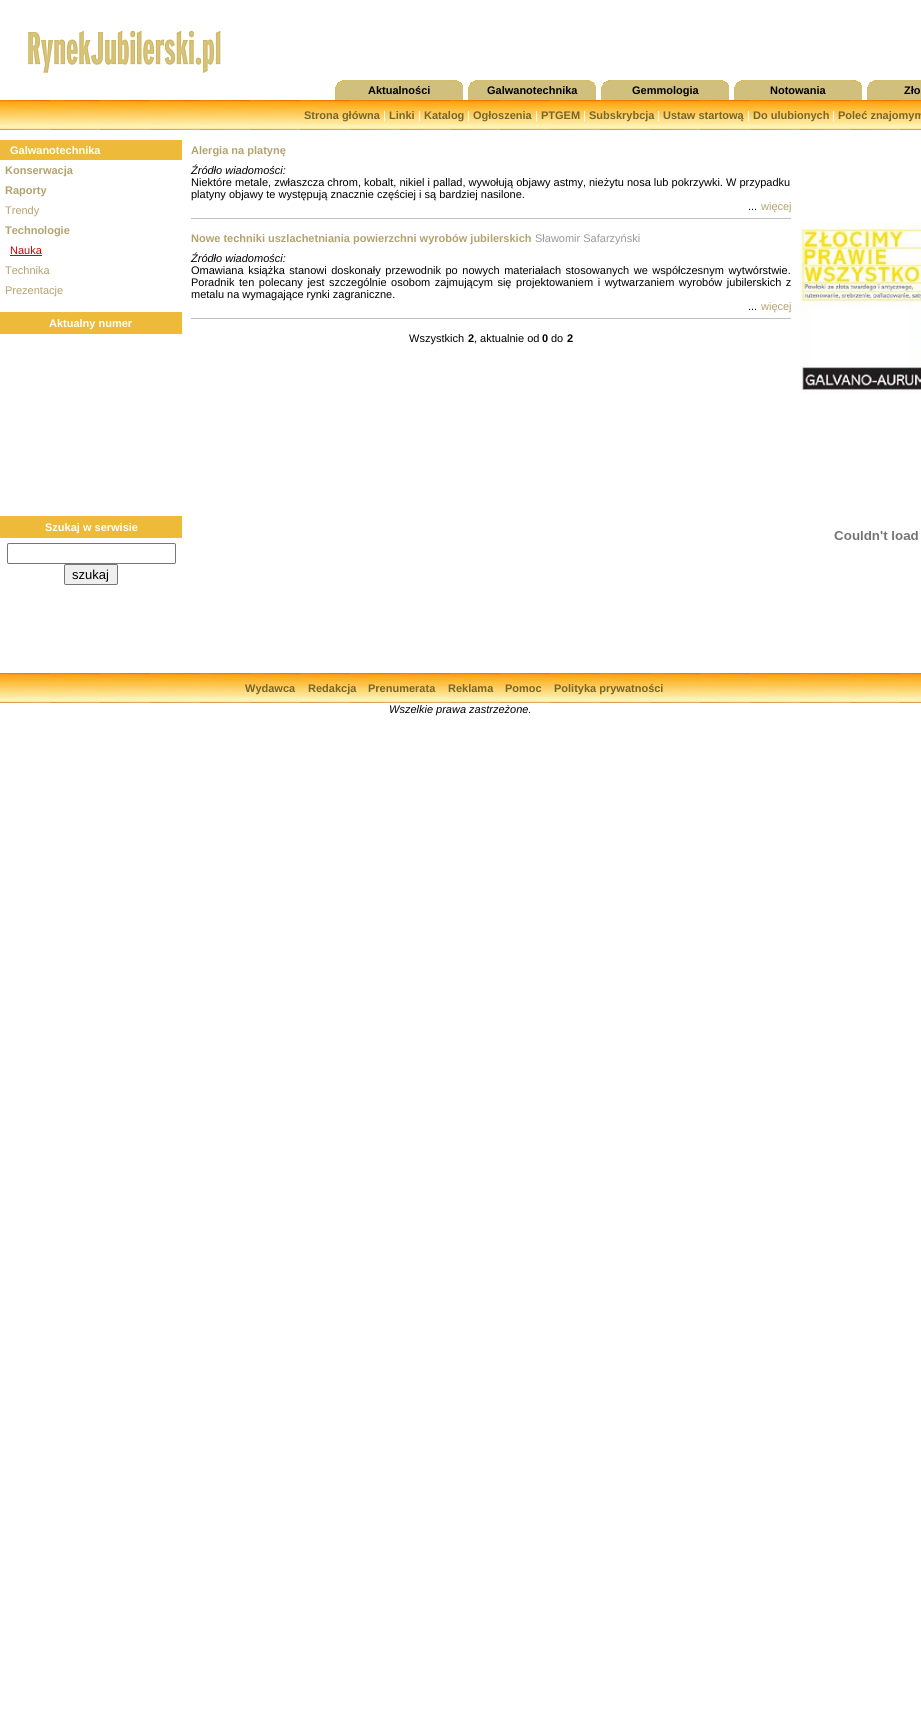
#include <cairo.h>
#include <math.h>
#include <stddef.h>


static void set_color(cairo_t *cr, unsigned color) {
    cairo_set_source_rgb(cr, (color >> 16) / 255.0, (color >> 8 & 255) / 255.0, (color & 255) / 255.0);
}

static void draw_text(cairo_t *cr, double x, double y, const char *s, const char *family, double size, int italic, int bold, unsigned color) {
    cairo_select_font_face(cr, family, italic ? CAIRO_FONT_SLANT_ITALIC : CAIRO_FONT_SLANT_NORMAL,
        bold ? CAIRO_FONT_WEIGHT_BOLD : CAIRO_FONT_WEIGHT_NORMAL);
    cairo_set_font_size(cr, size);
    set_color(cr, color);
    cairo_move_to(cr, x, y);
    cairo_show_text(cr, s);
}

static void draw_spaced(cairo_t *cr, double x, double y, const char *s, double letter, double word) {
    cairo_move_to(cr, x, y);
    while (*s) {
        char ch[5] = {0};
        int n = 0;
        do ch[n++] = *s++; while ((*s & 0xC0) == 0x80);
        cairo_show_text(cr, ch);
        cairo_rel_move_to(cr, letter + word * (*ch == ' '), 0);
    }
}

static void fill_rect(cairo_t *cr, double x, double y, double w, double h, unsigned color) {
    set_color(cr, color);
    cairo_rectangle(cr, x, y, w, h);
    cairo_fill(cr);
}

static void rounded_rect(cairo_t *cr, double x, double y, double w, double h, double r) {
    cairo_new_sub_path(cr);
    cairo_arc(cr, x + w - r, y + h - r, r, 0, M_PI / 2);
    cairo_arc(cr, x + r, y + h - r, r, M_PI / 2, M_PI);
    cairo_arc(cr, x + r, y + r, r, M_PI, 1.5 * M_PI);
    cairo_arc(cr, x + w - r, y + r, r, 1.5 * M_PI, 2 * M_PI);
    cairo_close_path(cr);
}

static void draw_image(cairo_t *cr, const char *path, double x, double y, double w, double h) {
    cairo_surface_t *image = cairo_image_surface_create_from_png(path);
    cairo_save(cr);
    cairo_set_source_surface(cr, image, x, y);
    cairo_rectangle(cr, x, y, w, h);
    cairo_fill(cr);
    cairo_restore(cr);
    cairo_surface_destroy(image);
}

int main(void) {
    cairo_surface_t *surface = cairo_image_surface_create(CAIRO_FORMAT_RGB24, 921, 1720);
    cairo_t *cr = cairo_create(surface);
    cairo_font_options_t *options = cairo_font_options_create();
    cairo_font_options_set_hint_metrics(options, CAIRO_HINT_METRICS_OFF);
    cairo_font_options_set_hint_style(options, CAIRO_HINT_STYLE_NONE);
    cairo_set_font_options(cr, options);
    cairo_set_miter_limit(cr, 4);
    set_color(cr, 0xFFFFFF);
    cairo_paint(cr);
    draw_image(cr, "assets/img1.png", 28, 30, 193, 43);
    draw_image(cr, "assets/img2.png", 335, 80, 128, 20);
    draw_text(cr, 368, 94, "Aktualności", "Liberation Sans", 11, 0, 1, 0x000000);
    draw_image(cr, "assets/img3.png", 468, 80, 128, 20);
    draw_text(cr, 487, 94, "Galwanotechnika", "Liberation Sans", 11, 0, 1, 0x000000);
    draw_image(cr, "assets/img4.png", 601, 80, 128, 20);
    draw_text(cr, 632, 94, "Gemmologia", "Liberation Sans", 11, 0, 1, 0x000000);
    draw_image(cr, "assets/img5.png", 734, 80, 128, 20);
    draw_text(cr, 770, 94, "Notowania", "Liberation Sans", 11, 0, 1, 0x000000);
    draw_image(cr, "assets/img6.png", 867, 80, 54, 20);
    draw_text(cr, 904, 94, "Zło", "Liberation Sans", 11, 0, 1, 0x000000);
    draw_image(cr, "assets/img7.png", 0, 100, 921, 30);
    draw_text(cr, 304, 119, "Strona główna", "Liberation Sans", 11, 0, 1, 0x75662B);
    draw_text(cr, 383, 119, "|", "Liberation Sans", 11, 0, 0, 0xFFFFFF);
    draw_text(cr, 389, 119, "Linki", "Liberation Sans", 11, 0, 1, 0x75662B);
    draw_text(cr, 418, 119, "|", "Liberation Sans", 11, 0, 0, 0xFFFFFF);
    draw_text(cr, 424, 119, "Katalog", "Liberation Sans", 11, 0, 1, 0x75662B);
    draw_text(cr, 467, 119, "|", "Liberation Sans", 11, 0, 0, 0xFFFFFF);
    draw_text(cr, 473, 119, "Ogłoszenia", "Liberation Sans", 11, 0, 1, 0x75662B);
    draw_text(cr, 535, 119, "|", "Liberation Sans", 11, 0, 0, 0xFFFFFF);
    draw_text(cr, 541, 119, "PTGEM", "Liberation Sans", 11, 0, 1, 0x75662B);
    draw_text(cr, 583, 119, "|", "Liberation Sans", 11, 0, 0, 0xFFFFFF);
    draw_text(cr, 589, 119, "Subskrybcja", "Liberation Sans", 11, 0, 1, 0x75662B);
    draw_text(cr, 657, 119, "|", "Liberation Sans", 11, 0, 0, 0xFFFFFF);
    draw_text(cr, 663, 119, "Ustaw startową", "Liberation Sans", 11, 0, 1, 0x75662B);
    draw_text(cr, 747, 119, "|", "Liberation Sans", 11, 0, 0, 0xFFFFFF);
    draw_text(cr, 753, 119, "Do ulubionych", "Liberation Sans", 11, 0, 1, 0x75662B);
    draw_text(cr, 832, 119, "|", "Liberation Sans", 11, 0, 0, 0xFFFFFF);
    draw_text(cr, 838, 119, "Poleć znajomym", "Liberation Sans", 11, 0, 1, 0x75662B);
    fill_rect(cr, 0, 140, 182, 20, 0xEDBA3A);
    draw_text(cr, 10, 154, "Galwanotechnika", "Liberation Sans", 11, 0, 1, 0xFFFFFF);
    draw_text(cr, 5, 174, "Konserwacja", "Liberation Sans", 11, 0, 1, 0xB3A270);
    draw_text(cr, 5, 194, "Raporty", "Liberation Sans", 11, 0, 1, 0xB3A270);
    draw_text(cr, 5, 214, "Trendy", "Liberation Sans", 11, 0, 0, 0xB3A270);
    draw_text(cr, 5, 234, "Technologie", "Liberation Sans", 11, 0, 1, 0xB3A270);
    draw_text(cr, 10, 254, "Nauka", "Liberation Sans", 11, 0, 0, 0xCC0000);
    fill_rect(cr, 10, 255, 32, 1, 0xCC0000);
    draw_text(cr, 5, 274, "Technika", "Liberation Sans", 11, 0, 0, 0xB3A270);
    draw_text(cr, 5, 294, "Prezentacje", "Liberation Sans", 11, 0, 0, 0xB3A270);
    fill_rect(cr, 0, 312, 182, 22, 0xEDBA3A);
    draw_text(cr, 49, 327, "Aktualny numer", "Liberation Sans", 11, 0, 1, 0xFFFFFF);
    fill_rect(cr, 0, 516, 182, 22, 0xEDBA3A);
    draw_text(cr, 45, 531, "Szukaj w serwisie", "Liberation Sans", 11, 0, 1, 0xFFFFFF);
    rounded_rect(cr, 7.5, 543.5, 168, 20, 1.5);
    set_color(cr, 0x767676);
    cairo_set_line_width(cr, 1);
    cairo_stroke(cr);
    set_color(cr, 0xEFEFEF);
    rounded_rect(cr, 64.5, 564.5, 53, 20, 1.5);
    cairo_fill_preserve(cr);
    set_color(cr, 0x767676);
    cairo_stroke(cr);
    draw_text(cr, 72, 579, "szukaj", "Liberation Sans", 13, 0, 0, 0x000000);
    draw_text(cr, 191, 154, "Alergia na platynę", "Liberation Sans", 11, 0, 1, 0xB3A270);
    draw_text(cr, 191, 174, "Źródło wiadomości:", "Liberation Sans", 11, 1, 0, 0x000000);
    draw_text(cr, 191, 186, "Niektóre metale, zwłaszcza chrom, kobalt, nikiel i pallad, wywołują objawy astmy, nieżytu nosa lub pokrzywki. W przypadku", "Liberation Sans", 11, 0, 0, 0x000000);
    draw_text(cr, 191, 198, "platyny objawy te występują znacznie częściej i są bardziej nasilone.", "Liberation Sans", 11, 0, 0, 0x000000);
    draw_text(cr, 748, 210, "...", "Liberation Sans", 11, 0, 0, 0x000000);
    draw_text(cr, 761, 210, "więcej", "Liberation Sans", 11, 0, 0, 0xB3A270);
    fill_rect(cr, 191, 218, 600, 1, 0xC0C0C0);
    draw_text(cr, 191, 242, "Nowe techniki uszlachetniania powierzchni wyrobów jubilerskich", "Liberation Sans", 11, 0, 1, 0xB3A270);
    draw_text(cr, 535, 242, "Sławomir Safarzyński", "Liberation Sans", 11, 0, 0, 0x999999);
    draw_text(cr, 191, 262, "Źródło wiadomości:", "Liberation Sans", 11, 1, 0, 0x000000);
    cairo_select_font_face(cr, "Liberation Sans", CAIRO_FONT_SLANT_NORMAL, CAIRO_FONT_WEIGHT_NORMAL);
    draw_spaced(cr, 191, 274, "Omawiana książka stanowi doskonały przewodnik po nowych materiałach stosowanych we współczesnym wytwórstwie.", 0, 1.5);
    draw_spaced(cr, 191, 286, "Poradnik ten polecany jest szczególnie osobom zajmującym się projektowaniem i wytwarzaniem wyrobów jubilerskich z", 0, 1.5);
    draw_text(cr, 191, 298, "metalu na wymagające rynki zagraniczne.", "Liberation Sans", 11, 0, 0, 0x000000);
    draw_text(cr, 748, 310, "...", "Liberation Sans", 11, 0, 0, 0x000000);
    draw_text(cr, 761, 310, "więcej", "Liberation Sans", 11, 0, 0, 0xB3A270);
    fill_rect(cr, 191, 318, 600, 1, 0xC0C0C0);
    draw_text(cr, 409, 342, "Wszystkich", "Liberation Sans", 11, 0, 0, 0x000000);
    draw_text(cr, 468, 342, "2", "Liberation Sans", 11, 0, 1, 0x000000);
    draw_text(cr, 474, 342, ", aktualnie od", "Liberation Sans", 11, 0, 0, 0x000000);
    draw_text(cr, 542, 342, "0", "Liberation Sans", 11, 0, 1, 0x000000);
    draw_text(cr, 551, 342, "do", "Liberation Sans", 11, 0, 0, 0x000000);
    draw_text(cr, 567, 342, "2", "Liberation Sans", 11, 0, 1, 0x000000);
    draw_image(cr, "assets/img8.png", 800, 222, 121, 172);
    draw_image(cr, "assets/img9.png", 834, 531, 84, 9);
    draw_image(cr, "assets/img7.png", 0, 673, 921, 30);
    draw_text(cr, 245, 692, "Wydawca", "Liberation Sans", 11, 0, 1, 0x75662B);
    draw_text(cr, 308, 692, "Redakcja", "Liberation Sans", 11, 0, 1, 0x75662B);
    draw_text(cr, 368, 692, "Prenumerata", "Liberation Sans", 11, 0, 1, 0x75662B);
    draw_text(cr, 448, 692, "Reklama", "Liberation Sans", 11, 0, 1, 0x75662B);
    draw_text(cr, 505, 692, "Pomoc", "Liberation Sans", 11, 0, 1, 0x75662B);
    draw_text(cr, 554, 692, "Polityka prywatności", "Liberation Sans", 11, 0, 1, 0x75662B);
    draw_text(cr, 389, 713, "Wszelkie prawa zastrzeżone.", "Liberation Sans", 11, 1, 0, 0x000000);
    cairo_surface_write_to_png(surface, "output.png");
    cairo_font_options_destroy(options);
    cairo_destroy(cr);
    cairo_surface_destroy(surface);
    return 0;
}
